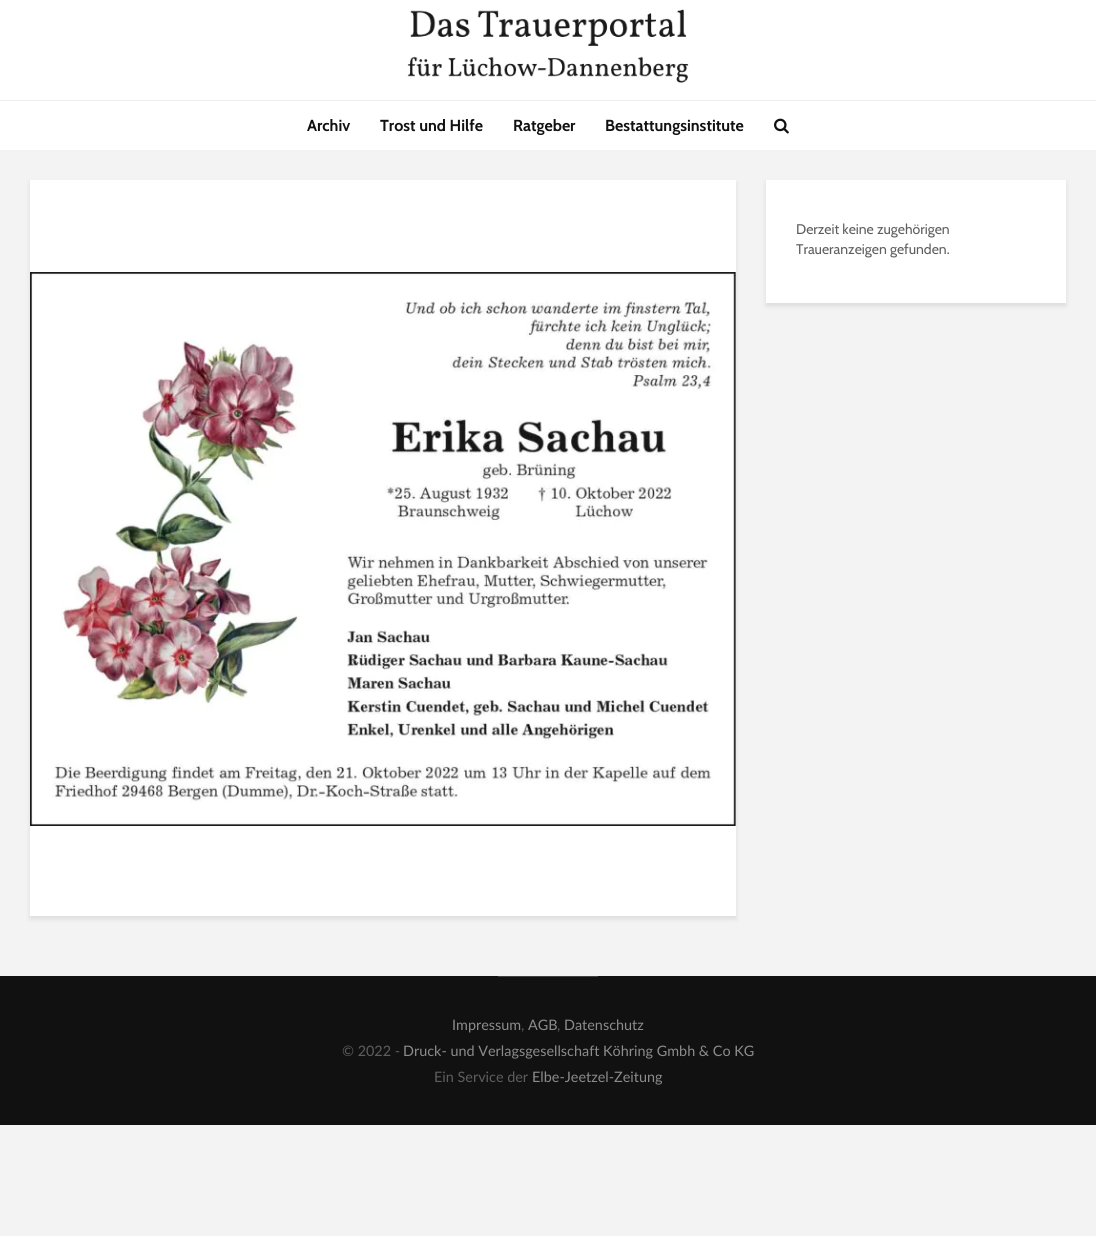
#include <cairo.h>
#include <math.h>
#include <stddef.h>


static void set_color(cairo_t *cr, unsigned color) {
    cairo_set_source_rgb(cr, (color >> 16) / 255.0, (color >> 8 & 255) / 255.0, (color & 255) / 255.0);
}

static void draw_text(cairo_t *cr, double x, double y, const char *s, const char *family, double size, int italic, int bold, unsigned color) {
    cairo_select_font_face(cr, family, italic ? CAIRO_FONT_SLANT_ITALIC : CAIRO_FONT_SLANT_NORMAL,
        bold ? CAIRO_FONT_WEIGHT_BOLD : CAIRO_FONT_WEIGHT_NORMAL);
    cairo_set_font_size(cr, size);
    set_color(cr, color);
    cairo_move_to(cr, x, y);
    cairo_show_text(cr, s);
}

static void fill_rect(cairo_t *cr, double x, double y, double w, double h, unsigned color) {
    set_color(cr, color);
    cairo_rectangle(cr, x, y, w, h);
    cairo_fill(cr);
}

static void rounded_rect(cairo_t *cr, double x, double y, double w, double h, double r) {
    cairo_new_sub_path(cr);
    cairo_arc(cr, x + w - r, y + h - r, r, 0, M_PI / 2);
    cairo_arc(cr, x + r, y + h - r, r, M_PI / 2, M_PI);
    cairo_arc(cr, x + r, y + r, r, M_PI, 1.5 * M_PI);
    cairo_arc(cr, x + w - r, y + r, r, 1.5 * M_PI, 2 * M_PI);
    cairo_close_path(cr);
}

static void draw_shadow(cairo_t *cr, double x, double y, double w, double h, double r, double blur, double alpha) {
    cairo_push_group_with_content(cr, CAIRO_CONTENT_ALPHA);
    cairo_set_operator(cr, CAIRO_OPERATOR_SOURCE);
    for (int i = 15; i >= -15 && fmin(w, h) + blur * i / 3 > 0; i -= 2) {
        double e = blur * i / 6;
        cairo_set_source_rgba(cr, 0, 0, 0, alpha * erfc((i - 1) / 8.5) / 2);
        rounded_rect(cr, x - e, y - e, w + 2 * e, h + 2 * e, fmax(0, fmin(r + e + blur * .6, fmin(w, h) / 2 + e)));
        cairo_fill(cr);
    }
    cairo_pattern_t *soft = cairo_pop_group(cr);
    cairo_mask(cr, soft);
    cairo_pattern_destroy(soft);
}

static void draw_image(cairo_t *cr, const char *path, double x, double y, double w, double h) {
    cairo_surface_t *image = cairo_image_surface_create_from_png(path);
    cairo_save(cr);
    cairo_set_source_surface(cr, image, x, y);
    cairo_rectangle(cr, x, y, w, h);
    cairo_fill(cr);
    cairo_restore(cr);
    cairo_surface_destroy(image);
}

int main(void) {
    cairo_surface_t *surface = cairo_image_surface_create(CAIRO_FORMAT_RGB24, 1096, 1236);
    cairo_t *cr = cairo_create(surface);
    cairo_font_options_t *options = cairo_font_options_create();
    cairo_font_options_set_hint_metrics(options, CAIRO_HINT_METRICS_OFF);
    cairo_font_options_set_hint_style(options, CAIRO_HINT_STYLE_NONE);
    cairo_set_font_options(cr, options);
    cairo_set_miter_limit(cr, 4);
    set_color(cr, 0xF3F3F3);
    cairo_paint(cr);
    fill_rect(cr, 0, 0, 1096, 100, 0xFFFFFF);
    draw_image(cr, "assets/img1.png", 407, 9, 282, 74);
    fill_rect(cr, 0, 101, 1096, 49, 0xFFFFFF);
    fill_rect(cr, 0, 100, 1096, 1, 0xEEEEEE);
    draw_text(cr, 307, 131, "Archiv", "Cabin", 16, 0, 1, 0x111111);
    draw_text(cr, 380, 131, "Trost und Hilfe", "Cabin", 16, 0, 1, 0x111111);
    draw_text(cr, 513, 131, "Ratgeber", "Cabin", 16, 0, 1, 0x111111);
    draw_text(cr, 605, 131, "Bestattungsinstitute", "Cabin", 16, 0, 1, 0x111111);
    draw_image(cr, "assets/img2.png", 774, 118, 15, 16);
    set_color(cr, 0x000101);
    draw_shadow(cr, 30, 183, 706, 736, 0, 2.5, 0.1);
    fill_rect(cr, 30, 180, 706, 736, 0xFFFFFF);
    draw_image(cr, "assets/img3.png", 30, 272, 706, 554);
    set_color(cr, 0x000101);
    draw_shadow(cr, 766, 183, 300, 123, 0, 2.5, 0.1);
    fill_rect(cr, 766, 180, 300, 123, 0xFFFFFF);
    draw_text(cr, 796, 234, "Derzeit keine zugehörigen", "Cabin", 14, 0, 0, 0x5E5E5E);
    draw_text(cr, 796, 254, "Traueranzeigen gefunden.", "Cabin", 14, 0, 0, 0x5E5E5E);
    fill_rect(cr, 0, 976, 1096, 149, 0x111111);
    fill_rect(cr, 498, 976, 100, 1, 0x414141);
    draw_text(cr, 452, 1030, "Impressum", "Lato", 14.4, 0, 0, 0x8C8C8D);
    draw_text(cr, 521, 1030, ",", "Lato", 14.4, 0, 0, 0x5E5E5E);
    draw_text(cr, 528, 1030, "AGB", "Lato", 14.4, 0, 0, 0x8C8C8D);
    draw_text(cr, 557, 1030, ",", "Lato", 14.4, 0, 0, 0x5E5E5E);
    draw_text(cr, 564, 1030, "Datenschutz", "Lato", 14.4, 0, 0, 0x8C8C8D);
    draw_text(cr, 342, 1056, "© 2022 -", "Lato", 14.4, 0, 0, 0x5E5E5E);
    draw_text(cr, 403, 1056, "Druck- und Verlagsgesellschaft Köhring Gmbh & Co KG", "Lato", 14.4, 0, 0, 0x8C8C8D);
    draw_text(cr, 434, 1082, "Ein Service der", "Lato", 14.4, 0, 0, 0x5E5E5E);
    draw_text(cr, 532, 1082, "Elbe-Jeetzel-Zeitung", "Lato", 14.4, 0, 0, 0x8C8C8D);
    cairo_surface_write_to_png(surface, "output.png");
    cairo_font_options_destroy(options);
    cairo_destroy(cr);
    cairo_surface_destroy(surface);
    return 0;
}
